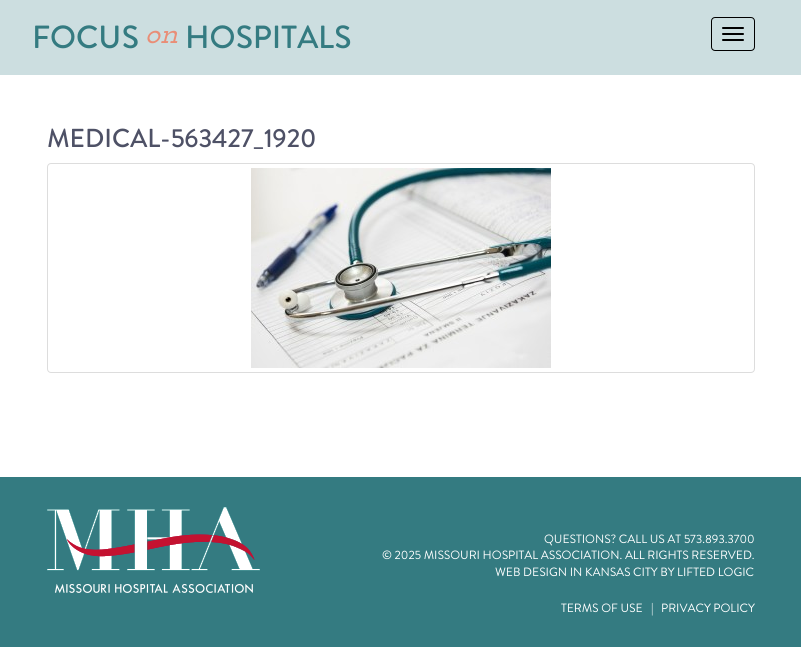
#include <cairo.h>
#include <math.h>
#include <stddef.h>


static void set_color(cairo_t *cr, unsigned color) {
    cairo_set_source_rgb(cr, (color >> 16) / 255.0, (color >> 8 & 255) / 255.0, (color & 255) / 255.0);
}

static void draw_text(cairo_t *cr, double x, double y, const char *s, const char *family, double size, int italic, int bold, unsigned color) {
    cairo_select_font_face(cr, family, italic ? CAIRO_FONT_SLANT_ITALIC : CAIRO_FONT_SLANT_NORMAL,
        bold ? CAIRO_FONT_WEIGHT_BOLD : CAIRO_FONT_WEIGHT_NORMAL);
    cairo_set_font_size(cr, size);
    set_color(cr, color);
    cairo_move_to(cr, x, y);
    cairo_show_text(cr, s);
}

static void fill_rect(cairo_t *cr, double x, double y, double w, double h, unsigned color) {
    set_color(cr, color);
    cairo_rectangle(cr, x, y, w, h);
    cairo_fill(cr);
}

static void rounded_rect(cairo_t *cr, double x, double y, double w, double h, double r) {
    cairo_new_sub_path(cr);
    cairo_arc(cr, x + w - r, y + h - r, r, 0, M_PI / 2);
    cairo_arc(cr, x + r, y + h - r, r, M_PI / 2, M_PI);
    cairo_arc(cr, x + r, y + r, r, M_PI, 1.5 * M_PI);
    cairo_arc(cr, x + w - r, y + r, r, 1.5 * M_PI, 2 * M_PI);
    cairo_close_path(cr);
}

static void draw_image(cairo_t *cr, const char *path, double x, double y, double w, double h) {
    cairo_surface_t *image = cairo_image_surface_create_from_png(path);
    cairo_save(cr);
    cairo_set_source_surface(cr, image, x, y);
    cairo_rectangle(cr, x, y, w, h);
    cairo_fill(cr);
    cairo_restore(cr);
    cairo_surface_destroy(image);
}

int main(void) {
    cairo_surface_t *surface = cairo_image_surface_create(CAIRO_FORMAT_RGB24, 801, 647);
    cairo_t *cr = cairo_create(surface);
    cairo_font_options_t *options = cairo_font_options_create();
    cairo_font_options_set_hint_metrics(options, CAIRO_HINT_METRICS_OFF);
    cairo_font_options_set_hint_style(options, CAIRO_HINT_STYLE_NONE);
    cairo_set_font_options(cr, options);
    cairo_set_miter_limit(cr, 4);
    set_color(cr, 0xFFFFFF);
    cairo_paint(cr);
    fill_rect(cr, 0, 0, 801, 75, 0xCCDEE0);
    draw_text(cr, 32, 48, "FOCUS", "Brandon Grotesque Medium", 32, 0, 0, 0x347B81);
    draw_text(cr, 145, 43, "on", "Josefin Slab SemiBold", 32, 1, 0, 0xE98E77);
    draw_text(cr, 185, 48, "HOSPITALS", "Brandon Grotesque Medium", 32, 0, 0, 0x347B81);
    rounded_rect(cr, 711.5, 17.5, 43, 33, 3.5);
    set_color(cr, 0x000000);
    cairo_set_line_width(cr, 1);
    cairo_stroke(cr);
    rounded_rect(cr, 722, 27, 22, 2, 1);
    cairo_fill(cr);
    rounded_rect(cr, 722, 33, 22, 2, 1);
    cairo_fill(cr);
    rounded_rect(cr, 722, 39, 22, 2, 1);
    cairo_fill(cr);
    draw_text(cr, 47, 147, "MEDICAL-563427_1920", "Brandon Grotesque Medium", 26, 0, 0, 0x4E5166);
    rounded_rect(cr, 47.5, 163.5, 707, 209, 3.5);
    set_color(cr, 0xDDDDDD);
    cairo_stroke(cr);
    draw_image(cr, "assets/img1.png", 251, 168, 300, 200);
    fill_rect(cr, 0, 477, 801, 170, 0x347B81);
    draw_image(cr, "assets/img2.png", 47, 507, 213, 86);
    draw_text(cr, 544, 543, "QUESTIONS? CALL US AT 573.893.3700", "Brandon Grotesque", 12, 0, 0, 0xFFFFFF);
    draw_text(cr, 382, 559, "© 2025 MISSOURI HOSPITAL ASSOCIATION. ALL RIGHTS RESERVED.", "Brandon Grotesque", 12, 0, 0, 0xFFFFFF);
    draw_text(cr, 495, 576, "WEB DESIGN IN KANSAS CITY BY LIFTED LOGIC", "Brandon Grotesque", 12, 0, 0, 0xFFFFFF);
    draw_text(cr, 561, 612, "TERMS OF USE", "Brandon Grotesque", 12, 0, 0, 0xFFFFFF);
    draw_text(cr, 651, 612, "|", "Brandon Grotesque", 12, 0, 0, 0xFFFFFF);
    draw_text(cr, 661, 612, "PRIVACY POLICY", "Brandon Grotesque", 12, 0, 0, 0xFFFFFF);
    cairo_surface_write_to_png(surface, "output.png");
    cairo_font_options_destroy(options);
    cairo_destroy(cr);
    cairo_surface_destroy(surface);
    return 0;
}
